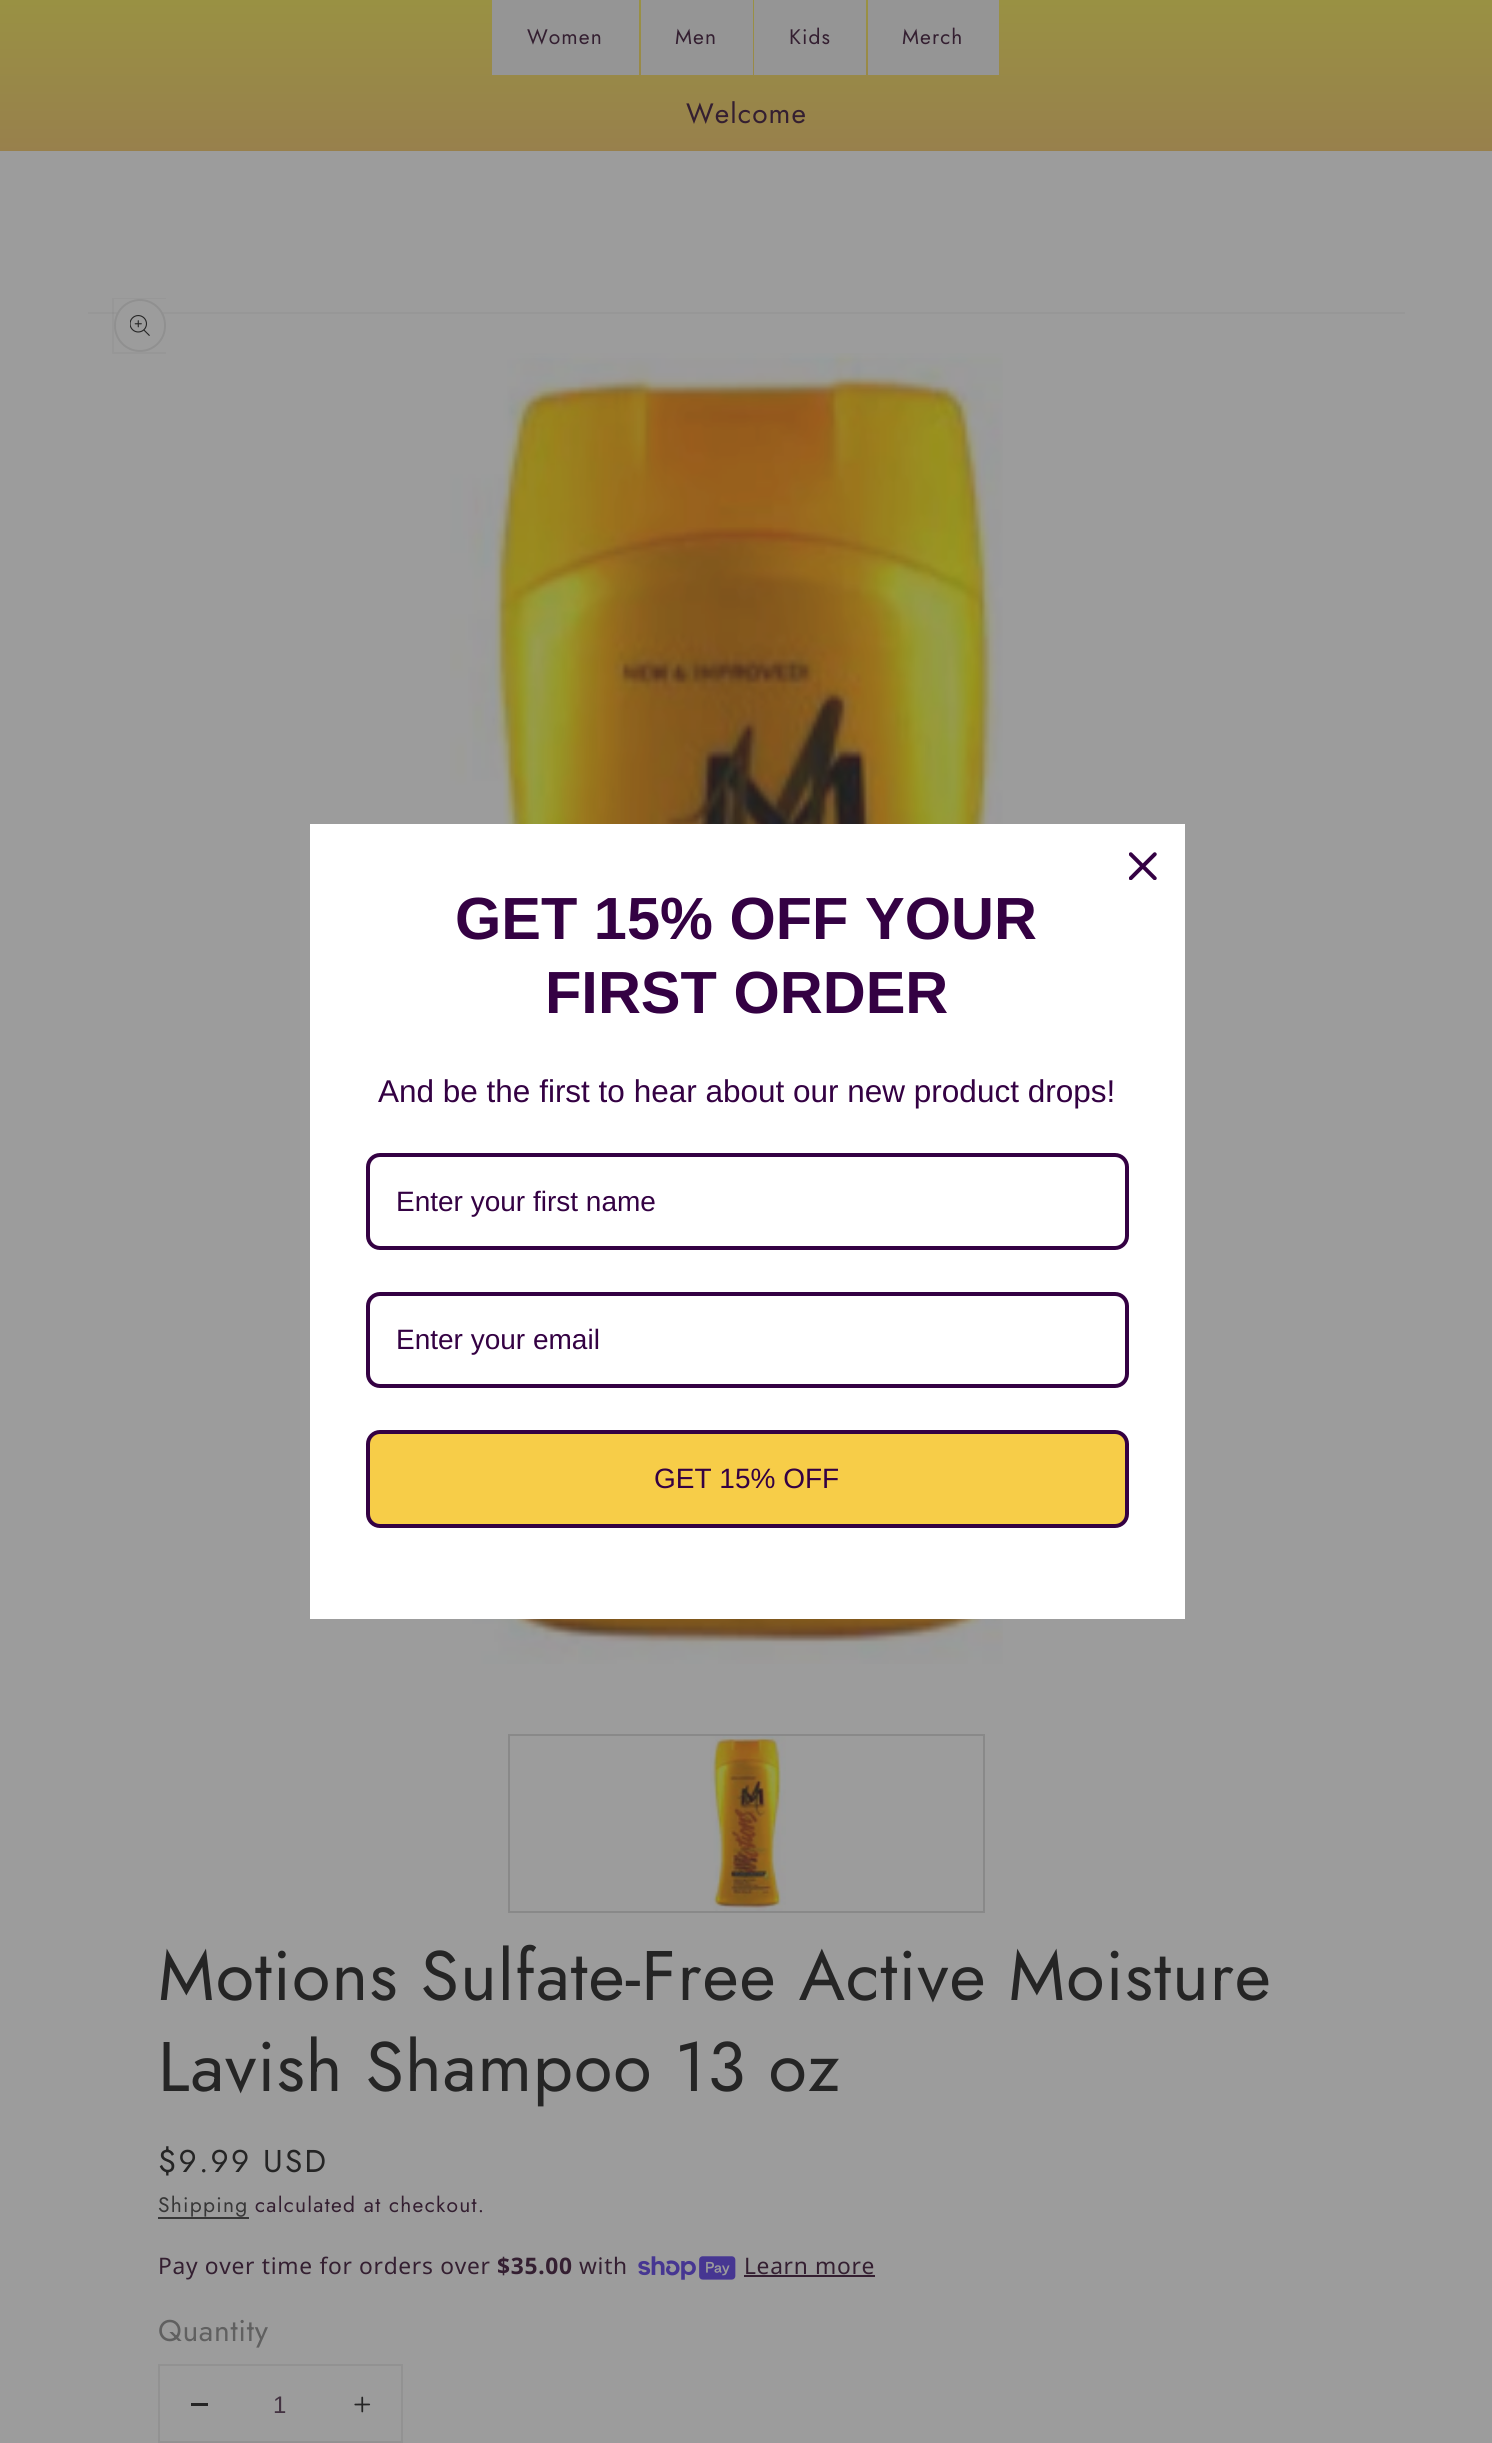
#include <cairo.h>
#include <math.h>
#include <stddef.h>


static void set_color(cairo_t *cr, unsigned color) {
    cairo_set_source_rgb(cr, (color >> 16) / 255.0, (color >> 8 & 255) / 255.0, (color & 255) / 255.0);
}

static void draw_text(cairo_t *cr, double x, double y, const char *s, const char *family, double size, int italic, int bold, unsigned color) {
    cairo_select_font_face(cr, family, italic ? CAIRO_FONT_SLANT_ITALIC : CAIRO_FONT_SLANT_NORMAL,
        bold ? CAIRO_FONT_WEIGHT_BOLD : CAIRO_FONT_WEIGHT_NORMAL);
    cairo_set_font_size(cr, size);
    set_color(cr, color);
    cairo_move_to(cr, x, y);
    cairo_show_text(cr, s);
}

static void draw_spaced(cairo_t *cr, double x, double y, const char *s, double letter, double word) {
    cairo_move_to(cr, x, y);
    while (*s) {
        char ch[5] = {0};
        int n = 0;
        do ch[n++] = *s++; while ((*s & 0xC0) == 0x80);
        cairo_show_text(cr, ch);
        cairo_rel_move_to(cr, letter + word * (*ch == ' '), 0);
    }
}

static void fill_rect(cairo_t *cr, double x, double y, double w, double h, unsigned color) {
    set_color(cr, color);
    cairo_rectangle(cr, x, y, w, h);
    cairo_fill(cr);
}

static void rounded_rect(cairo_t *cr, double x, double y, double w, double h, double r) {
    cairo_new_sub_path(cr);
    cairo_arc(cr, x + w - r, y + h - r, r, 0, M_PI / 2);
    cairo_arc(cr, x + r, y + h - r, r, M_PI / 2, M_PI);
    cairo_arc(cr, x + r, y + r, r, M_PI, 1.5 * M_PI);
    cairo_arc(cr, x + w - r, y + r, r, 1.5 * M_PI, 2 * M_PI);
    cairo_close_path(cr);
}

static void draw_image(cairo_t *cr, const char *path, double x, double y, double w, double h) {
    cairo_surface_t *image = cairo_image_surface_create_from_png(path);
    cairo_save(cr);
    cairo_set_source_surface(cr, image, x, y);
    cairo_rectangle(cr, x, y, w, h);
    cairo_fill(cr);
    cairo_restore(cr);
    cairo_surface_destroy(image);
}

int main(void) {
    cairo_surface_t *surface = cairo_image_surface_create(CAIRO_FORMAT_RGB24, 1492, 2443);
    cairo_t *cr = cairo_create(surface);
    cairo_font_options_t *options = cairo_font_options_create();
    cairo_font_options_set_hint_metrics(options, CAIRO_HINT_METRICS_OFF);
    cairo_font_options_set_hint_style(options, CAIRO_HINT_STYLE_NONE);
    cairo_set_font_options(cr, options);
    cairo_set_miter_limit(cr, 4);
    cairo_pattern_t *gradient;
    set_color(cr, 0x9C9C9C);
    cairo_paint(cr);
    gradient = cairo_pattern_create_linear(746, 0, 746, 151);
    cairo_pattern_add_color_stop_rgba(gradient, 0, 0.6, 0.569, 0.263, 1);
    cairo_pattern_add_color_stop_rgba(gradient, 1, 0.596, 0.502, 0.298, 1);
    cairo_set_source(cr, gradient);
    cairo_pattern_destroy(gradient);
    cairo_rectangle(cr, 0, 0, 1492, 151);
    cairo_fill(cr);
    fill_rect(cr, 492, 0, 147, 75, 0x959595);
    cairo_select_font_face(cr, "Jost", CAIRO_FONT_SLANT_NORMAL, CAIRO_FONT_WEIGHT_NORMAL);
    cairo_set_font_size(cr, 21);
    set_color(cr, 0x341F31);
    draw_spaced(cr, 527, 44, "Women", 1.05, 0);
    fill_rect(cr, 641, 0, 112, 75, 0x959595);
    set_color(cr, 0x341F31);
    draw_spaced(cr, 675, 44, "Men", 1.05, 0);
    fill_rect(cr, 754, 0, 112, 75, 0x959595);
    set_color(cr, 0x341F31);
    draw_spaced(cr, 789, 44, "Kids", 1.05, 0);
    fill_rect(cr, 868, 0, 131, 75, 0x959595);
    set_color(cr, 0x341F31);
    draw_spaced(cr, 902, 44, "Merch", 1.05, 0);
    cairo_set_font_size(cr, 28);
    draw_spaced(cr, 686, 123, "Welcome", 1.05, 0);
    draw_image(cr, "assets/img3.png", 450, 353, 553, 1311);
    fill_rect(cr, 310, 824, 875, 795, 0xFFFFFF);
    draw_image(cr, "assets/img1.png", 1129, 852, 28, 28);
    draw_text(cr, 455, 939, "GET 15% OFF YOUR", "Liberation Sans", 59.5, 0, 1, 0x340143);
    draw_text(cr, 545, 1013, "FIRST ORDER", "Liberation Sans", 59.5, 0, 1, 0x340143);
    draw_text(cr, 378, 1102, "And be the first to hear about our new product drops!", "Liberation Sans", 31.5, 0, 0, 0x340143);
    rounded_rect(cr, 368, 1155, 759, 93, 12);
    cairo_set_line_width(cr, 4);
    cairo_stroke(cr);
    draw_text(cr, 396, 1211, "Enter your first name", "Liberation Sans", 28, 0, 0, 0x340143);
    rounded_rect(cr, 368, 1294, 759, 92, 12);
    cairo_stroke(cr);
    draw_text(cr, 396, 1349, "Enter your email", "Liberation Sans", 28, 0, 0, 0x340143);
    set_color(cr, 0xF7CD48);
    rounded_rect(cr, 368, 1432, 759, 94, 12);
    cairo_fill_preserve(cr);
    set_color(cr, 0x340143);
    cairo_stroke(cr);
    draw_text(cr, 654, 1488, "GET 15% OFF", "Liberation Sans", 28, 0, 0, 0x340143);
    set_color(cr, 0x979797);
    cairo_new_path(cr);
    cairo_move_to(cr, 112, 298);
    cairo_line_to(cr, 166, 298);
    cairo_line_to(cr, 166, 299);
    cairo_line_to(cr, 114, 299);
    cairo_close_path(cr);
    cairo_move_to(cr, 166, 354);
    cairo_line_to(cr, 112, 354);
    cairo_line_to(cr, 114, 352);
    cairo_line_to(cr, 166, 352);
    cairo_close_path(cr);
    cairo_fill(cr);
    cairo_set_source_rgba(cr, 0.145, 0.145, 0.145, 0.04);
    cairo_new_path(cr);
    cairo_move_to(cr, 112, 354);
    cairo_line_to(cr, 112, 298);
    cairo_line_to(cr, 114, 299);
    cairo_line_to(cr, 114, 352);
    cairo_close_path(cr);
    cairo_fill(cr);
    cairo_rectangle(cr, 88, 312, 1317, 2);
    cairo_fill(cr);
    set_color(cr, 0x9C9C9C);
    rounded_rect(cr, 115, 300, 50, 51, 25);
    cairo_fill_preserve(cr);
    set_color(cr, 0x909090);
    cairo_set_line_width(cr, 2);
    cairo_stroke(cr);
    draw_image(cr, "assets/img2.png", 130, 315, 20, 21);
    cairo_rectangle(cr, 509, 1735, 475, 177);
    set_color(cr, 0x898989);
    cairo_stroke(cr);
    draw_image(cr, "assets/img4.png", 710, 1736, 76, 175);
    cairo_select_font_face(cr, "Jost", CAIRO_FONT_SLANT_NORMAL, CAIRO_FONT_WEIGHT_NORMAL);
    cairo_set_font_size(cr, 70);
    set_color(cr, 0x252525);
    draw_spaced(cr, 158, 2000, "Motions Sulfate-Free Active Moisture", 1.05, 0);
    draw_spaced(cr, 158, 2091, "Lavish Shampoo 13 oz", 1.05, 0);
    cairo_set_font_size(cr, 31.5);
    draw_spaced(cr, 158, 2172, "$9.99 USD", 2.25, 0);
    cairo_set_font_size(cr, 21);
    set_color(cr, 0x373737);
    draw_spaced(cr, 158, 2212, "Shipping", 1.25, 0);
    fill_rect(cr, 158, 2217, 91, 2, 0x373737);
    set_color(cr, 0x341F31);
    draw_spaced(cr, 255, 2212, "calculated at checkout.", 1.25, 0);
    cairo_select_font_face(cr, "Noto Sans", CAIRO_FONT_SLANT_NORMAL, CAIRO_FONT_WEIGHT_NORMAL);
    cairo_set_font_size(cr, 22.75);
    draw_spaced(cr, 158, 2274, "Pay over time for orders over", 0.7, 0);
    cairo_select_font_face(cr, "Noto Sans", CAIRO_FONT_SLANT_NORMAL, CAIRO_FONT_WEIGHT_BOLD);
    draw_spaced(cr, 497, 2274, "$35.00", 0.7, 0);
    cairo_select_font_face(cr, "Noto Sans", CAIRO_FONT_SLANT_NORMAL, CAIRO_FONT_WEIGHT_NORMAL);
    draw_spaced(cr, 579, 2274, "with", 0.7, 0);
    draw_image(cr, "assets/img5.png", 638, 2256, 98, 24);
    draw_spaced(cr, 744, 2274, "Learn more", 0.7, 0);
    fill_rect(cr, 744, 2275, 131, 2, 0x341F31);
    cairo_select_font_face(cr, "Jost", CAIRO_FONT_SLANT_NORMAL, CAIRO_FONT_WEIGHT_NORMAL);
    cairo_set_font_size(cr, 30);
    set_color(cr, 0x606060);
    draw_spaced(cr, 158, 2341, "Quantity", 0.7, 0);
    cairo_rectangle(cr, 159, 2365, 243, 77);
    set_color(cr, 0x929292);
    cairo_stroke(cr);
    fill_rect(cr, 191, 2403, 17, 3, 0x252525);
    draw_text(cr, 273, 2413, "1", "Liberation Sans", 24, 0, 0, 0x433241);
    draw_image(cr, "assets/img6.png", 354, 2396, 17, 17);
    cairo_surface_write_to_png(surface, "output.png");
    cairo_font_options_destroy(options);
    cairo_destroy(cr);
    cairo_surface_destroy(surface);
    return 0;
}
